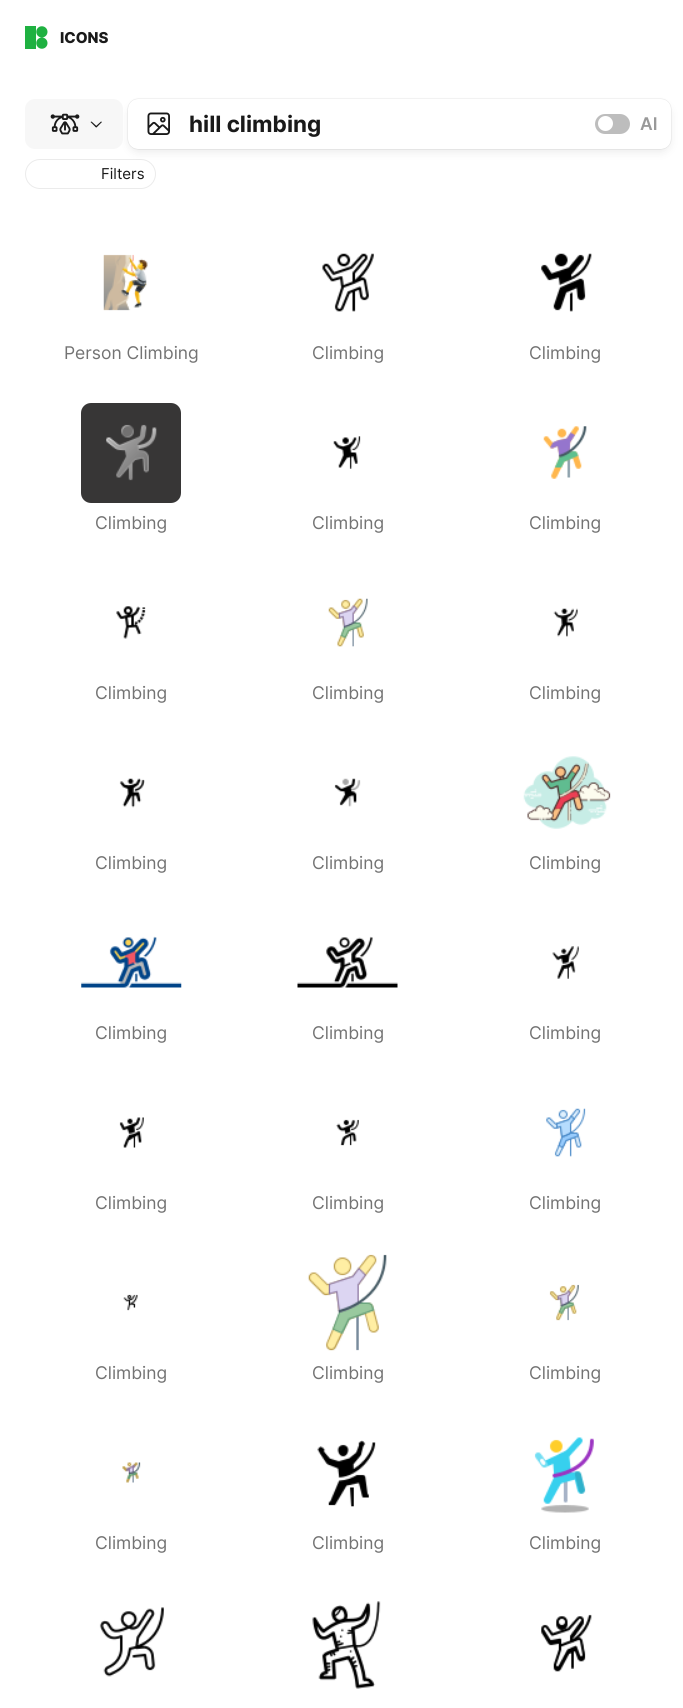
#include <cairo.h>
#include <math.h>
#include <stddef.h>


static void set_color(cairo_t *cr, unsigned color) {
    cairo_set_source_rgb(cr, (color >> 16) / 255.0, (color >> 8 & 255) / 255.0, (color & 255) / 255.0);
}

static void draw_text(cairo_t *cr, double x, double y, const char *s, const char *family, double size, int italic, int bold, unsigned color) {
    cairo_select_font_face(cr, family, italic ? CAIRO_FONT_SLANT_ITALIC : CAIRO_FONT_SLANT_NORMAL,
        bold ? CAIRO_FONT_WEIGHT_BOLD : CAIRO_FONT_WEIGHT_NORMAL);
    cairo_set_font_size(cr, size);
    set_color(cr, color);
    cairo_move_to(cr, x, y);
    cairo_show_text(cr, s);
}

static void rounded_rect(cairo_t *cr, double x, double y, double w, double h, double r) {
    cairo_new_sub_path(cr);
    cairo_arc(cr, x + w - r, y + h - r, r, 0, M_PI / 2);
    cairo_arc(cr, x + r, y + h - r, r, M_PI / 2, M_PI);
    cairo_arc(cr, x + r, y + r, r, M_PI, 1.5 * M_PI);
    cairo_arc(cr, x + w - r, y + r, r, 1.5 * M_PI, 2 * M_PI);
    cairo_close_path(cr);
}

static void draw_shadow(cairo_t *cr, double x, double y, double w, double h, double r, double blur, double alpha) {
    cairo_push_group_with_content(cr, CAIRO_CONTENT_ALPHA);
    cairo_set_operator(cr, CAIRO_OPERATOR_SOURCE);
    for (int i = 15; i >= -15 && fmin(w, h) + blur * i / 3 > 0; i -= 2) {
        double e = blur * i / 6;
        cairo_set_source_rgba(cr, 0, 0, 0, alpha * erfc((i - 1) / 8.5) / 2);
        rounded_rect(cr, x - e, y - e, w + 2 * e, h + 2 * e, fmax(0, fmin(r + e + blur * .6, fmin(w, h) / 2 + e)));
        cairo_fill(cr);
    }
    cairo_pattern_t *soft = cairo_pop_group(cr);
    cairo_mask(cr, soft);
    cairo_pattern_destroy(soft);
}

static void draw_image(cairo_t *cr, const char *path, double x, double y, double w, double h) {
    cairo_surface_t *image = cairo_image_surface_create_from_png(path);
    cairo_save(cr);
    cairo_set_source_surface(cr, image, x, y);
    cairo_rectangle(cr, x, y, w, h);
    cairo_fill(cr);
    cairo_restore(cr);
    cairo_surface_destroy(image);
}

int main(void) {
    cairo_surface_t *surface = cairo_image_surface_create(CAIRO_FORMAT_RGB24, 683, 1708);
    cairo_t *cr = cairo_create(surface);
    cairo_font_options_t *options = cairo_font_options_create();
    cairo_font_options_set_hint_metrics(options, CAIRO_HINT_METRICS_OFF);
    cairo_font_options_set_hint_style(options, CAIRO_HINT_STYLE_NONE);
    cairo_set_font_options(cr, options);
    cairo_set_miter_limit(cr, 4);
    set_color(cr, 0xFFFFFF);
    cairo_paint(cr);
    draw_image(cr, "assets/img1.png", 25, 26, 23, 23);
    draw_text(cr, 60, 43, "ICONS", "Inter ExtraBold", 15, 0, 0, 0x1A1A1A);
    rounded_rect(cr, 25.5, 159.5, 130, 29, 14.5);
    set_color(cr, 0xEBEBEB);
    cairo_set_line_width(cr, 1);
    cairo_stroke(cr);
    set_color(cr, 0x606060);
    draw_shadow(cr, 130, 106, 539, 45, 8, 5, 0.15);
    set_color(cr, 0xF7F7F7);
    rounded_rect(cr, 25, 99, 98, 50, 10);
    cairo_fill(cr);
    draw_image(cr, "assets/img2.png", 50, 113, 30, 22);
    set_color(cr, 0x1A1A1A);
    cairo_new_path(cr);
    cairo_move_to(cr, 91.5, 121.5);
    cairo_line_to(cr, 97, 126.5);
    cairo_line_to(cr, 96, 127.5);
    cairo_line_to(cr, 90.5, 122);
    cairo_close_path(cr);
    cairo_fill(cr);
    cairo_new_path(cr);
    cairo_move_to(cr, 95.5, 126.5);
    cairo_line_to(cr, 101, 121.5);
    cairo_line_to(cr, 102, 122);
    cairo_line_to(cr, 96.5, 127.5);
    cairo_close_path(cr);
    cairo_fill(cr);
    set_color(cr, 0x606060);
    draw_shadow(cr, 128, 99, 543, 50, 10, 0.5, 0.31);
    set_color(cr, 0xFFFFFF);
    rounded_rect(cr, 128, 99, 543, 50, 10);
    cairo_fill(cr);
    draw_image(cr, "assets/img3.png", 147, 112, 23, 23);
    draw_text(cr, 189, 132, "hill climbing", "Inter", 22.5, 0, 1, 0x1A1A1A);
    set_color(cr, 0xBDBDBD);
    rounded_rect(cr, 595, 114, 35, 20, 10);
    cairo_fill(cr);
    set_color(cr, 0xFFFFFF);
    cairo_arc(cr, 605.5, 123.5, 7.5, 0, 2 * M_PI);
    cairo_fill(cr);
    draw_text(cr, 640, 130, "AI", "Inter SemiBold", 17.5, 0, 0, 0x999999);
    draw_text(cr, 101, 179, "Filters", "Inter", 15, 0, 0, 0x1A1A1A);
    draw_image(cr, "assets/img4.png", 103, 254, 45, 57);
    draw_text(cr, 64, 359, "Person Climbing", "Inter", 17.5, 0, 0, 0x737373);
    draw_image(cr, "assets/img5.png", 322, 253, 52, 59);
    draw_text(cr, 312, 359, "Climbing", "Inter", 17.5, 0, 0, 0x737373);
    draw_image(cr, "assets/img6.png", 541, 253, 51, 59);
    draw_text(cr, 529, 359, "Climbing", "Inter", 17.5, 0, 0, 0x737373);
    set_color(cr, 0x373636);
    rounded_rect(cr, 81, 403, 100, 100, 10);
    cairo_fill(cr);
    draw_image(cr, "assets/img7.png", 106, 424, 51, 57);
    draw_text(cr, 95, 529, "Climbing", "Inter", 17.5, 0, 0, 0x737373);
    draw_image(cr, "assets/img8.png", 333, 436, 28, 33);
    draw_text(cr, 312, 529, "Climbing", "Inter", 17.5, 0, 0, 0x737373);
    draw_image(cr, "assets/img9.png", 543, 426, 44, 53);
    draw_text(cr, 529, 529, "Climbing", "Inter", 17.5, 0, 0, 0x737373);
    draw_image(cr, "assets/img10.png", 116, 606, 30, 33);
    draw_text(cr, 95, 699, "Climbing", "Inter", 17.5, 0, 0, 0x737373);
    draw_image(cr, "assets/img11.png", 328, 598, 40, 49);
    draw_text(cr, 312, 699, "Climbing", "Inter", 17.5, 0, 0, 0x737373);
    draw_image(cr, "assets/img12.png", 553, 608, 25, 29);
    draw_text(cr, 529, 699, "Climbing", "Inter", 17.5, 0, 0, 0x737373);
    draw_image(cr, "assets/img13.png", 119, 778, 26, 30);
    draw_text(cr, 95, 869, "Climbing", "Inter", 17.5, 0, 0, 0x737373);
    draw_image(cr, "assets/img14.png", 334, 778, 27, 29);
    draw_text(cr, 312, 869, "Climbing", "Inter", 17.5, 0, 0, 0x737373);
    draw_image(cr, "assets/img15.png", 523, 756, 88, 73);
    draw_text(cr, 529, 869, "Climbing", "Inter", 17.5, 0, 0, 0x737373);
    draw_image(cr, "assets/img16.png", 81, 936, 101, 52);
    draw_text(cr, 95, 1039, "Climbing", "Inter", 17.5, 0, 0, 0x737373);
    draw_image(cr, "assets/img17.png", 297, 936, 101, 52);
    draw_text(cr, 312, 1039, "Climbing", "Inter", 17.5, 0, 0, 0x737373);
    draw_image(cr, "assets/img18.png", 552, 946, 27, 33);
    draw_text(cr, 529, 1039, "Climbing", "Inter", 17.5, 0, 0, 0x737373);
    draw_image(cr, "assets/img19.png", 119, 1117, 25, 31);
    draw_text(cr, 95, 1209, "Climbing", "Inter", 17.5, 0, 0, 0x737373);
    draw_image(cr, "assets/img20.png", 336, 1119, 23, 27);
    draw_text(cr, 312, 1209, "Climbing", "Inter", 17.5, 0, 0, 0x737373);
    draw_image(cr, "assets/img21.png", 546, 1108, 40, 49);
    draw_text(cr, 529, 1209, "Climbing", "Inter", 17.5, 0, 0, 0x737373);
    draw_image(cr, "assets/img22.png", 123, 1294, 15, 17);
    draw_text(cr, 95, 1379, "Climbing", "Inter", 17.5, 0, 0, 0x737373);
    draw_image(cr, "assets/img23.png", 307, 1254, 80, 97);
    draw_text(cr, 312, 1379, "Climbing", "Inter", 17.5, 0, 0, 0x737373);
    draw_image(cr, "assets/img24.png", 549, 1284, 30, 37);
    draw_text(cr, 529, 1379, "Climbing", "Inter", 17.5, 0, 0, 0x737373);
    draw_image(cr, "assets/img25.png", 122, 1462, 19, 21);
    draw_text(cr, 95, 1549, "Climbing", "Inter", 17.5, 0, 0, 0x737373);
    draw_image(cr, "assets/img26.png", 317, 1440, 59, 67);
    draw_text(cr, 312, 1549, "Climbing", "Inter", 17.5, 0, 0, 0x737373);
    draw_image(cr, "assets/img27.png", 534, 1437, 60, 76);
    draw_text(cr, 529, 1549, "Climbing", "Inter", 17.5, 0, 0, 0x737373);
    draw_image(cr, "assets/img28.png", 99, 1607, 65, 70);
    draw_image(cr, "assets/img29.png", 312, 1601, 69, 88);
    draw_image(cr, "assets/img30.png", 541, 1614, 51, 58);
    cairo_surface_write_to_png(surface, "output.png");
    cairo_font_options_destroy(options);
    cairo_destroy(cr);
    cairo_surface_destroy(surface);
    return 0;
}
